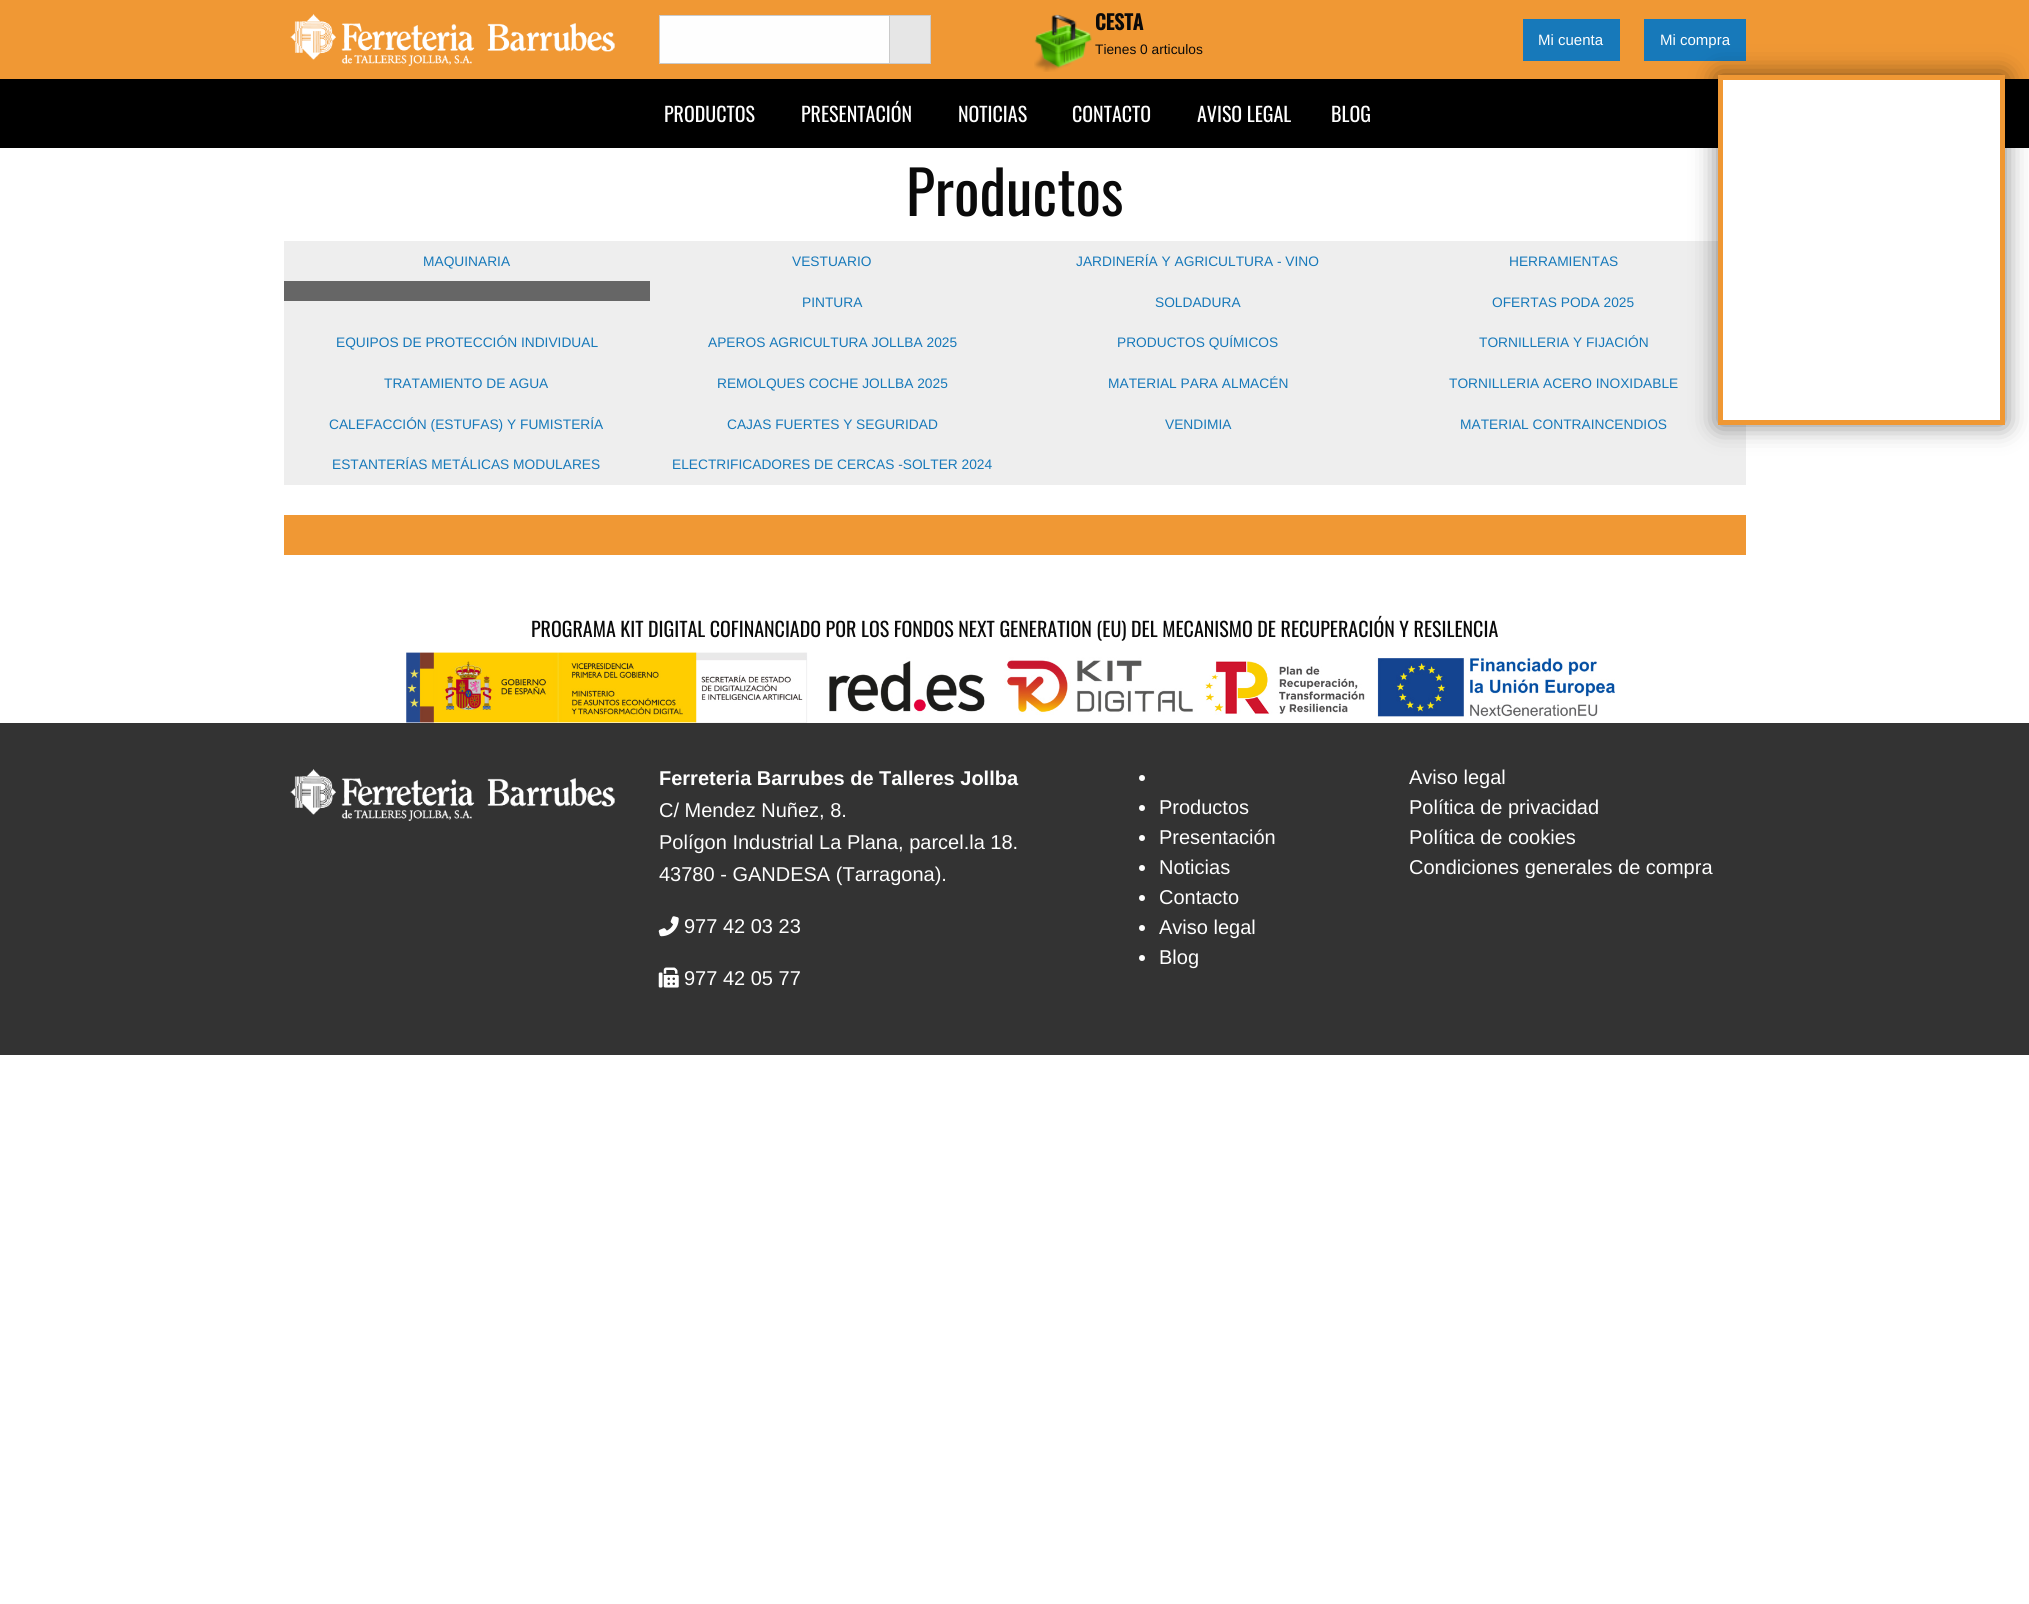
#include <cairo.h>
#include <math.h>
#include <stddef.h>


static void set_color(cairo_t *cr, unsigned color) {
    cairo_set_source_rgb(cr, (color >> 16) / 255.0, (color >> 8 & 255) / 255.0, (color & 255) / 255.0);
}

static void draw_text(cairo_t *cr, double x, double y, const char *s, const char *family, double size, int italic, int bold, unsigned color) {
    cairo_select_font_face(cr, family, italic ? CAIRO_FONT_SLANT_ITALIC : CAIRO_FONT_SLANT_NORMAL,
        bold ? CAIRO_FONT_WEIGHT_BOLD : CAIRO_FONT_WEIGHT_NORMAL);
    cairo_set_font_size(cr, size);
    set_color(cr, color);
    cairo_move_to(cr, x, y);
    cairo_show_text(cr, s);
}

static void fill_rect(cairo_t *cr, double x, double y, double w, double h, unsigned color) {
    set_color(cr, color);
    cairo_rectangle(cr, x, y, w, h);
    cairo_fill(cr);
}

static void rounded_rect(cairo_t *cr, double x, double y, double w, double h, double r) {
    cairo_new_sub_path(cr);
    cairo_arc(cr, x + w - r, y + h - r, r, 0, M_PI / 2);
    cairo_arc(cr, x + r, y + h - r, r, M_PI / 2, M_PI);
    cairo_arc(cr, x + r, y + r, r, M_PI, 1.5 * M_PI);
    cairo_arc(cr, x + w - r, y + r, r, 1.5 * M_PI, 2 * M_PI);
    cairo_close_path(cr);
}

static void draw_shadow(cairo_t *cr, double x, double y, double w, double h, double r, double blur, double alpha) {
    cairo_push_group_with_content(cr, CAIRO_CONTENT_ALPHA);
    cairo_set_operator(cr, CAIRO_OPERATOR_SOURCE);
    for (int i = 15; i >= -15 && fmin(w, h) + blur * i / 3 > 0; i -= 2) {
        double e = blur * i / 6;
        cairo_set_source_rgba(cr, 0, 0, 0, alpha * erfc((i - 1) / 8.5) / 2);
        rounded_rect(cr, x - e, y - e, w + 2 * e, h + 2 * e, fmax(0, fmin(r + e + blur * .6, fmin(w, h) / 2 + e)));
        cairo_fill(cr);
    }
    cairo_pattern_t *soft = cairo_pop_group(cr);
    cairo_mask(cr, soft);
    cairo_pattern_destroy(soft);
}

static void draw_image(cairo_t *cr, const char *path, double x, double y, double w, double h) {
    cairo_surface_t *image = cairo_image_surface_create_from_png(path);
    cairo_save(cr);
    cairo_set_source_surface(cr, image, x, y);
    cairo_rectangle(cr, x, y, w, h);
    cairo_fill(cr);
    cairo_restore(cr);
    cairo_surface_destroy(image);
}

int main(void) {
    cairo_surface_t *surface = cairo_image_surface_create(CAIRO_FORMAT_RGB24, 2029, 1604);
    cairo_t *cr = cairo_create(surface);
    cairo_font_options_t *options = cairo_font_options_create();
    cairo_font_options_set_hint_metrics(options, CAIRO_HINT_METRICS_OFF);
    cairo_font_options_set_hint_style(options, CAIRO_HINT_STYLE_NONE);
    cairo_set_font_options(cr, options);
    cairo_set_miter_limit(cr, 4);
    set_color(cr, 0xFFFFFF);
    cairo_paint(cr);
    fill_rect(cr, 0, 0, 2029, 79, 0xF09834);
    draw_image(cr, "assets/img1.png", 290, 14, 325, 52);
    set_color(cr, 0xFEFEFE);
    cairo_rectangle(cr, 659.5, 15.5, 230, 48);
    cairo_fill_preserve(cr);
    set_color(cr, 0xCACACA);
    cairo_set_line_width(cr, 1);
    cairo_stroke(cr);
    fill_rect(cr, 890, 16, 40, 47, 0xE6E6E6);
    fill_rect(cr, 890, 15, 41, 1, 0xCACACA);
    fill_rect(cr, 930, 15, 1, 49, 0xCACACA);
    fill_rect(cr, 890, 63, 41, 1, 0xCACACA);
    draw_image(cr, "assets/img2.png", 1034, 14, 58, 58);
    draw_text(cr, 1095, 30, "CESTA", "Oswald", 20, 0, 1, 0x0A0A0A);
    draw_text(cr, 1095, 54, "Tienes 0 articulos", "Liberation Sans", 13.75, 0, 0, 0x0A0A0A);
    fill_rect(cr, 1644, 19, 102, 42, 0x1779BA);
    fill_rect(cr, 0, 79, 2029, 69, 0x000000);
    fill_rect(cr, 284, 241, 1462, 244, 0xEEEEEE);
    set_color(cr, 0x000000);
    draw_shadow(cr, 1718, 75, 287, 350, 0, 12.5, 0.5);
    set_color(cr, 0xFFFFFF);
    cairo_rectangle(cr, 1720.5, 77.5, 282, 345);
    cairo_fill_preserve(cr);
    set_color(cr, 0xF09834);
    cairo_set_line_width(cr, 5);
    cairo_stroke(cr);
    fill_rect(cr, 1523, 19, 97, 42, 0x1779BA);
    draw_text(cr, 1538, 45, "Mi cuenta", "Liberation Sans", 15, 0, 0, 0xFEFEFE);
    draw_text(cr, 1660, 45, "Mi compra", "Liberation Sans", 15, 0, 0, 0xFEFEFE);
    draw_text(cr, 664, 122, "PRODUCTOS", "Oswald", 20, 0, 0, 0xFEFEFE);
    draw_text(cr, 801, 122, "PRESENTACIÓN", "Oswald", 20, 0, 0, 0xFEFEFE);
    draw_text(cr, 958, 122, "NOTICIAS", "Oswald", 20, 0, 0, 0xFEFEFE);
    draw_text(cr, 1072, 122, "CONTACTO", "Oswald", 20, 0, 0, 0xFEFEFE);
    draw_text(cr, 1197, 122, "AVISO LEGAL", "Oswald", 20, 0, 0, 0xFEFEFE);
    draw_text(cr, 1331, 122, "BLOG", "Oswald", 20, 0, 0, 0xFEFEFE);
    draw_text(cr, 906, 216, "Productos", "Oswald", 60, 0, 0, 0x0A0A0A);
    draw_text(cr, 423, 266, "MAQUINARIA", "Liberation Sans", 13.75, 0, 0, 0x1779BA);
    draw_text(cr, 792, 266, "VESTUARIO", "Liberation Sans", 13.75, 0, 0, 0x1779BA);
    draw_text(cr, 1076, 266, "JARDINERÍA Y AGRICULTURA - VINO", "Liberation Sans", 13.75, 0, 0, 0x1779BA);
    draw_text(cr, 1509, 266, "HERRAMIENTAS", "Liberation Sans", 13.75, 0, 0, 0x1779BA);
    fill_rect(cr, 284, 281, 366, 20, 0x666666);
    draw_text(cr, 802, 307, "PINTURA", "Liberation Sans", 13.75, 0, 0, 0x1779BA);
    draw_text(cr, 1155, 307, "SOLDADURA", "Liberation Sans", 13.75, 0, 0, 0x1779BA);
    draw_text(cr, 1492, 307, "OFERTAS PODA 2025", "Liberation Sans", 13.75, 0, 0, 0x1779BA);
    draw_text(cr, 336, 347, "EQUIPOS DE PROTECCIÓN INDIVIDUAL", "Liberation Sans", 13.75, 0, 0, 0x1779BA);
    draw_text(cr, 708, 347, "APEROS AGRICULTURA JOLLBA 2025", "Liberation Sans", 13.75, 0, 0, 0x1779BA);
    draw_text(cr, 1117, 347, "PRODUCTOS QUÍMICOS", "Liberation Sans", 13.75, 0, 0, 0x1779BA);
    draw_text(cr, 1479, 347, "TORNILLERIA Y FIJACIÓN", "Liberation Sans", 13.75, 0, 0, 0x1779BA);
    draw_text(cr, 384, 388, "TRATAMIENTO DE AGUA", "Liberation Sans", 13.75, 0, 0, 0x1779BA);
    draw_text(cr, 717, 388, "REMOLQUES COCHE JOLLBA 2025", "Liberation Sans", 13.75, 0, 0, 0x1779BA);
    draw_text(cr, 1108, 388, "MATERIAL PARA ALMACÉN", "Liberation Sans", 13.75, 0, 0, 0x1779BA);
    draw_text(cr, 1449, 388, "TORNILLERIA ACERO INOXIDABLE", "Liberation Sans", 13.75, 0, 0, 0x1779BA);
    draw_text(cr, 329, 429, "CALEFACCIÓN (ESTUFAS) Y FUMISTERÍA", "Liberation Sans", 13.75, 0, 0, 0x1779BA);
    draw_text(cr, 727, 429, "CAJAS FUERTES Y SEGURIDAD", "Liberation Sans", 13.75, 0, 0, 0x1779BA);
    draw_text(cr, 1165, 429, "VENDIMIA", "Liberation Sans", 13.75, 0, 0, 0x1779BA);
    draw_text(cr, 1460, 429, "MATERIAL CONTRAINCENDIOS", "Liberation Sans", 13.75, 0, 0, 0x1779BA);
    draw_text(cr, 332, 469, "ESTANTERÍAS METÁLICAS MODULARES", "Liberation Sans", 13.75, 0, 0, 0x1779BA);
    draw_text(cr, 672, 469, "ELECTRIFICADORES DE CERCAS -SOLTER 2024", "Liberation Sans", 13.75, 0, 0, 0x1779BA);
    fill_rect(cr, 284, 515, 1462, 40, 0xF09834);
    draw_text(cr, 531, 637, "PROGRAMA KIT DIGITAL COFINANCIADO POR LOS FONDOS NEXT GENERATION (EU) DEL MECANISMO DE RECUPERACIÓN Y RESILENCIA", "Oswald", 20, 0, 0, 0x0A0A0A);
    draw_image(cr, "assets/img3.png", 406, 652, 1209, 71);
    fill_rect(cr, 0, 723, 2029, 332, 0x333333);
    draw_image(cr, "assets/img4.png", 290, 769, 325, 52);
    draw_text(cr, 659, 785, "Ferreteria Barrubes de Talleres Jollba", "Liberation Sans", 20, 0, 1, 0xFEFEFE);
    draw_text(cr, 659, 817, "C/ Mendez Nuñez, 8.", "Liberation Sans", 20, 0, 0, 0xFEFEFE);
    draw_text(cr, 659, 849, "Polígon Industrial La Plana, parcel.la 18.", "Liberation Sans", 20, 0, 0, 0xFEFEFE);
    draw_text(cr, 659, 881, "43780 - GANDESA (Tarragona).", "Liberation Sans", 20, 0, 0, 0xFEFEFE);
    draw_image(cr, "assets/img5.png", 658, 916, 21, 21);
    draw_text(cr, 684, 933, "977 42 03 23", "Liberation Sans", 20, 0, 0, 0xFEFEFE);
    draw_image(cr, "assets/img6.png", 658, 967, 21, 21);
    draw_text(cr, 684, 985, "977 42 05 77", "Liberation Sans", 20, 0, 0, 0xFEFEFE);
    set_color(cr, 0xFFFFFF);
    cairo_new_path(cr);
    cairo_arc(cr, 1142, 778, 3, 0, 2 * M_PI);
    cairo_fill(cr);
    cairo_arc(cr, 1142, 808, 3, 0, 2 * M_PI);
    cairo_fill(cr);
    draw_text(cr, 1159, 814, "Productos", "Liberation Sans", 20, 0, 0, 0xFEFEFE);
    set_color(cr, 0xFFFFFF);
    cairo_new_path(cr);
    cairo_arc(cr, 1142, 838, 3, 0, 2 * M_PI);
    cairo_fill(cr);
    draw_text(cr, 1159, 844, "Presentación", "Liberation Sans", 20, 0, 0, 0xFEFEFE);
    set_color(cr, 0xFFFFFF);
    cairo_new_path(cr);
    cairo_arc(cr, 1142, 868, 3, 0, 2 * M_PI);
    cairo_fill(cr);
    draw_text(cr, 1159, 874, "Noticias", "Liberation Sans", 20, 0, 0, 0xFEFEFE);
    set_color(cr, 0xFFFFFF);
    cairo_new_path(cr);
    cairo_arc(cr, 1142, 898, 3, 0, 2 * M_PI);
    cairo_fill(cr);
    draw_text(cr, 1159, 904, "Contacto", "Liberation Sans", 20, 0, 0, 0xFEFEFE);
    set_color(cr, 0xFFFFFF);
    cairo_new_path(cr);
    cairo_arc(cr, 1142, 928, 3, 0, 2 * M_PI);
    cairo_fill(cr);
    draw_text(cr, 1159, 934, "Aviso legal", "Liberation Sans", 20, 0, 0, 0xFEFEFE);
    set_color(cr, 0xFFFFFF);
    cairo_new_path(cr);
    cairo_arc(cr, 1142, 958, 3, 0, 2 * M_PI);
    cairo_fill(cr);
    draw_text(cr, 1159, 964, "Blog", "Liberation Sans", 20, 0, 0, 0xFEFEFE);
    draw_text(cr, 1409, 784, "Aviso legal", "Liberation Sans", 20, 0, 0, 0xFEFEFE);
    draw_text(cr, 1409, 814, "Política de privacidad", "Liberation Sans", 20, 0, 0, 0xFEFEFE);
    draw_text(cr, 1409, 844, "Política de cookies", "Liberation Sans", 20, 0, 0, 0xFEFEFE);
    draw_text(cr, 1409, 874, "Condiciones generales de compra", "Liberation Sans", 20, 0, 0, 0xFEFEFE);
    cairo_surface_write_to_png(surface, "output.png");
    cairo_font_options_destroy(options);
    cairo_destroy(cr);
    cairo_surface_destroy(surface);
    return 0;
}
